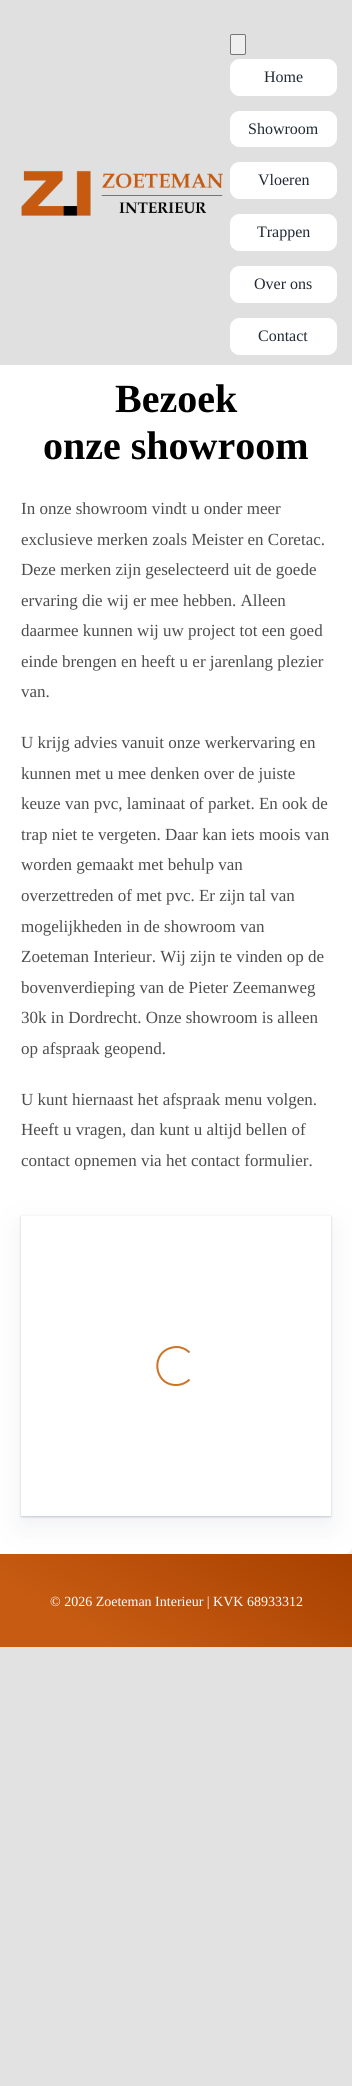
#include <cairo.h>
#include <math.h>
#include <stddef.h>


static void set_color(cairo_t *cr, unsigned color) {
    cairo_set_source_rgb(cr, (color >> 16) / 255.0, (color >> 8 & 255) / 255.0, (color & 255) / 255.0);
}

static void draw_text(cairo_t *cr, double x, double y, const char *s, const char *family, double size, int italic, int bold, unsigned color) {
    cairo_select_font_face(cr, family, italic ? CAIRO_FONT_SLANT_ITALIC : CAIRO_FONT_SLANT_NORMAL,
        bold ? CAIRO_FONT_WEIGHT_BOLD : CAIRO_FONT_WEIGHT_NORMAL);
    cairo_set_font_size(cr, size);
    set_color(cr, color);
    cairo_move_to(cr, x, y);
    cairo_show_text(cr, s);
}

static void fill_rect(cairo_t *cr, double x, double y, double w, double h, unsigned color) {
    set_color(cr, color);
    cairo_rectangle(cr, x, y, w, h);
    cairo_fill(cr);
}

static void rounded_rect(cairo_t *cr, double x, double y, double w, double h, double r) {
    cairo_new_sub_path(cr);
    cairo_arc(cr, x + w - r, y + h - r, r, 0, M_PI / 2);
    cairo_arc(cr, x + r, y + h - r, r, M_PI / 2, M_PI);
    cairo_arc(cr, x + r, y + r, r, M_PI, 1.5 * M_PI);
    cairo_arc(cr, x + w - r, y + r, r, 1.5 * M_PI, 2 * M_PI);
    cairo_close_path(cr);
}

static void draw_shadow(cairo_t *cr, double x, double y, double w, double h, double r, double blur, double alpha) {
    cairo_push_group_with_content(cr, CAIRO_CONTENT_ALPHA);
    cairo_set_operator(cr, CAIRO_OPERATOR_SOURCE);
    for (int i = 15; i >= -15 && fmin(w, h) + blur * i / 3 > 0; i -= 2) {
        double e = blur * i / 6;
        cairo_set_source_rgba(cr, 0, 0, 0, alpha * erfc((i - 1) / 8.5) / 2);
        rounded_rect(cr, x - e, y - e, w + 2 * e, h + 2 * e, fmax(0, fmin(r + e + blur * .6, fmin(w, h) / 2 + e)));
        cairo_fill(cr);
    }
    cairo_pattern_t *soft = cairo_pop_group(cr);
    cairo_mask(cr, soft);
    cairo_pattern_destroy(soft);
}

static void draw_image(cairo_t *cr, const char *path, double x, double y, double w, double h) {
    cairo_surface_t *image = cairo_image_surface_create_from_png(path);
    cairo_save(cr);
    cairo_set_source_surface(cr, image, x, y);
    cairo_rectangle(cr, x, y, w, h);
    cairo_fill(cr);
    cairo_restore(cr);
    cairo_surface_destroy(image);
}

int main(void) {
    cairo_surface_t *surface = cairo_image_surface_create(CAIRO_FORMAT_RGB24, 352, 2086);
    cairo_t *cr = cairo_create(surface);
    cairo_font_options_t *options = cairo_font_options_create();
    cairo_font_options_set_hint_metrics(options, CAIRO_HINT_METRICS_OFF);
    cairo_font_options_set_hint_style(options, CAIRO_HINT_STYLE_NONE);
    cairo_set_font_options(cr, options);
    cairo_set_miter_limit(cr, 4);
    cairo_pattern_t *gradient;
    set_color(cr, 0xE2E2E2);
    cairo_paint(cr);
    fill_rect(cr, 344, 1546, 8, 8, 0xEFF0F2);
    set_color(cr, 0xFFFFFF);
    cairo_new_path(cr);
    cairo_move_to(cr, 0, 316);
    cairo_line_to(cr, 344, 316);
    cairo_curve_to(cr, 348.5, 316, 352, 319.5, 352, 324);
    cairo_line_to(cr, 352, 1546);
    cairo_curve_to(cr, 352, 1550.5, 348.5, 1554, 344, 1554);
    cairo_line_to(cr, 0, 1554);
    cairo_close_path(cr);
    cairo_fill(cr);
    fill_rect(cr, 0, 0, 352, 365, 0xDFE0DF);
    draw_image(cr, "assets/img1.png", 21, 170, 202, 46);
    set_color(cr, 0xEFEFEF);
    rounded_rect(cr, 230.5, 34.5, 15, 20, 1.5);
    cairo_fill_preserve(cr);
    set_color(cr, 0x767676);
    cairo_set_line_width(cr, 1);
    cairo_stroke(cr);
    set_color(cr, 0xFCFDFC);
    rounded_rect(cr, 230, 59, 107, 37, 10);
    cairo_fill(cr);
    cairo_set_source_rgba(cr, 1, 1, 1, 0.92);
    rounded_rect(cr, 230, 59, 107, 37, 10);
    cairo_fill(cr);
    draw_text(cr, 264, 82, "Home", "Liberation Serif", 16, 0, 0, 0x212934);
    set_color(cr, 0xFCFDFC);
    rounded_rect(cr, 230, 111, 107, 36, 10);
    cairo_fill(cr);
    cairo_set_source_rgba(cr, 1, 1, 1, 0.92);
    rounded_rect(cr, 230, 111, 107, 36, 10);
    cairo_fill(cr);
    draw_text(cr, 248, 134, "Showroom", "Liberation Serif", 16, 0, 0, 0x212934);
    set_color(cr, 0xFCFDFC);
    rounded_rect(cr, 230, 162, 107, 37, 10);
    cairo_fill(cr);
    cairo_set_source_rgba(cr, 1, 1, 1, 0.92);
    rounded_rect(cr, 230, 162, 107, 37, 10);
    cairo_fill(cr);
    draw_text(cr, 258, 185, "Vloeren", "Liberation Serif", 16, 0, 0, 0x212934);
    set_color(cr, 0xFCFDFC);
    rounded_rect(cr, 230, 214, 107, 37, 10);
    cairo_fill(cr);
    cairo_set_source_rgba(cr, 1, 1, 1, 0.92);
    rounded_rect(cr, 230, 214, 107, 37, 10);
    cairo_fill(cr);
    draw_text(cr, 257, 237, "Trappen", "Liberation Serif", 16, 0, 0, 0x212934);
    set_color(cr, 0xFCFDFC);
    rounded_rect(cr, 230, 266, 107, 37, 10);
    cairo_fill(cr);
    cairo_set_source_rgba(cr, 1, 1, 1, 0.92);
    rounded_rect(cr, 230, 266, 107, 37, 10);
    cairo_fill(cr);
    draw_text(cr, 254, 289, "Over ons", "Liberation Serif", 16, 0, 0, 0x212934);
    set_color(cr, 0xFCFDFC);
    rounded_rect(cr, 230, 318, 107, 37, 10);
    cairo_fill(cr);
    cairo_set_source_rgba(cr, 1, 1, 1, 0.92);
    rounded_rect(cr, 230, 318, 107, 37, 10);
    cairo_fill(cr);
    draw_text(cr, 258, 341, "Contact", "Liberation Serif", 16, 0, 0, 0x212934);
    draw_text(cr, 115, 412, "Bezoek", "Liberation Serif", 40, 0, 1, 0x000000);
    draw_text(cr, 43, 459, "onze showroom", "Liberation Serif", 40, 0, 1, 0x000000);
    draw_text(cr, 21, 514, "In onze showroom vindt u onder meer", "Liberation Serif", 17, 0, 0, 0x4D4D4D);
    draw_text(cr, 21, 545, "exclusieve merken zoals Meister en Coretac.", "Liberation Serif", 17, 0, 0, 0x4D4D4D);
    draw_text(cr, 21, 575, "Deze merken zijn geselecteerd uit de goede", "Liberation Serif", 17, 0, 0, 0x4D4D4D);
    draw_text(cr, 21, 606, "ervaring die wij er mee hebben. Alleen", "Liberation Serif", 17, 0, 0, 0x4D4D4D);
    draw_text(cr, 21, 636, "daarmee kunnen wij uw project tot een goed", "Liberation Serif", 17, 0, 0, 0x4D4D4D);
    draw_text(cr, 21, 667, "einde brengen en heeft u er jarenlang plezier", "Liberation Serif", 17, 0, 0, 0x4D4D4D);
    draw_text(cr, 21, 697, "van.", "Liberation Serif", 17, 0, 0, 0x4D4D4D);
    draw_text(cr, 21, 748, "U krijg advies vanuit onze werkervaring en", "Liberation Serif", 17, 0, 0, 0x4D4D4D);
    draw_text(cr, 21, 779, "kunnen met u mee denken over de juiste", "Liberation Serif", 17, 0, 0, 0x4D4D4D);
    draw_text(cr, 21, 809, "keuze van pvc, laminaat of parket. En ook de", "Liberation Serif", 17, 0, 0, 0x4D4D4D);
    draw_text(cr, 21, 840, "trap niet te vergeten. Daar kan iets moois van", "Liberation Serif", 17, 0, 0, 0x4D4D4D);
    draw_text(cr, 21, 870, "worden gemaakt met behulp van", "Liberation Serif", 17, 0, 0, 0x4D4D4D);
    draw_text(cr, 21, 901, "overzettreden of met pvc. Er zijn tal van", "Liberation Serif", 17, 0, 0, 0x4D4D4D);
    draw_text(cr, 21, 932, "mogelijkheden in de showroom van", "Liberation Serif", 17, 0, 0, 0x4D4D4D);
    draw_text(cr, 21, 962, "Zoeteman Interieur. Wij zijn te vinden op de", "Liberation Serif", 17, 0, 0, 0x4D4D4D);
    draw_text(cr, 21, 993, "bovenverdieping van de Pieter Zeemanweg", "Liberation Serif", 17, 0, 0, 0x4D4D4D);
    draw_text(cr, 21, 1023, "30k in Dordrecht. Onze showroom is alleen", "Liberation Serif", 17, 0, 0, 0x4D4D4D);
    draw_text(cr, 21, 1054, "op afspraak geopend.", "Liberation Serif", 17, 0, 0, 0x4D4D4D);
    draw_text(cr, 21, 1105, "U kunt hiernaast het afspraak menu volgen.", "Liberation Serif", 17, 0, 0, 0x4D4D4D);
    draw_text(cr, 21, 1135, "Heeft u vragen, dan kunt u altijd bellen of", "Liberation Serif", 17, 0, 0, 0x4D4D4D);
    draw_text(cr, 21, 1166, "contact opnemen via het contact formulier.", "Liberation Serif", 17, 0, 0, 0x4D4D4D);
    cairo_save(cr);
    cairo_set_fill_rule(cr, CAIRO_FILL_RULE_EVEN_ODD);
    cairo_new_path(cr);
    cairo_move_to(cr, 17, 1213);
    cairo_line_to(cr, 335, 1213);
    cairo_line_to(cr, 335, 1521);
    cairo_line_to(cr, 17, 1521);
    cairo_close_path(cr);
    cairo_move_to(cr, 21, 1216);
    cairo_line_to(cr, 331, 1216);
    cairo_line_to(cr, 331, 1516);
    cairo_line_to(cr, 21, 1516);
    cairo_close_path(cr);
    cairo_clip(cr);
    set_color(cr, 0xA0AAB9);
    draw_shadow(cr, 21, 1217, 310, 300, 0, 1, 0.6);
    cairo_restore(cr);
    gradient = cairo_pattern_create_linear(240, 1489, 112, 1712);
    cairo_pattern_add_color_stop_rgba(gradient, 0, 0.655, 0.255, 0, 1);
    cairo_pattern_add_color_stop_rgba(gradient, 0.78, 0.78, 0.357, 0.071, 1);
    cairo_set_source(cr, gradient);
    cairo_pattern_destroy(gradient);
    cairo_rectangle(cr, 0, 1554, 352, 93);
    cairo_fill(cr);
    cairo_save(cr);
    cairo_set_fill_rule(cr, CAIRO_FILL_RULE_EVEN_ODD);
    cairo_new_path(cr);
    cairo_move_to(cr, 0, 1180);
    cairo_line_to(cr, 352, 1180);
    cairo_line_to(cr, 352, 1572);
    cairo_line_to(cr, 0, 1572);
    cairo_close_path(cr);
    cairo_move_to(cr, 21, 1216);
    cairo_line_to(cr, 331, 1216);
    cairo_line_to(cr, 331, 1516);
    cairo_line_to(cr, 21, 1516);
    cairo_close_path(cr);
    cairo_clip(cr);
    set_color(cr, 0x737D92);
    draw_shadow(cr, 21, 1226, 310, 300, 0, 15, 0.11);
    cairo_restore(cr);
    cairo_new_path(cr);
    cairo_move_to(cr, 189.5, 1379.5);
    cairo_curve_to(cr, 186, 1383, 181, 1385, 176, 1385);
    cairo_curve_to(cr, 153.5, 1385, 150, 1352, 172.5, 1347.5);
    cairo_curve_to(cr, 178.5, 1346, 185, 1348, 189.5, 1352.5);
    set_color(cr, 0xCC7424);
    cairo_set_line_width(cr, 2);
    cairo_stroke(cr);
    draw_text(cr, 50, 1606, "© 2026 Zoeteman Interieur | KVK 68933312", "Liberation Serif", 14, 0, 0, 0xFFFFFF);
    cairo_surface_write_to_png(surface, "output.png");
    cairo_font_options_destroy(options);
    cairo_destroy(cr);
    cairo_surface_destroy(surface);
    return 0;
}
